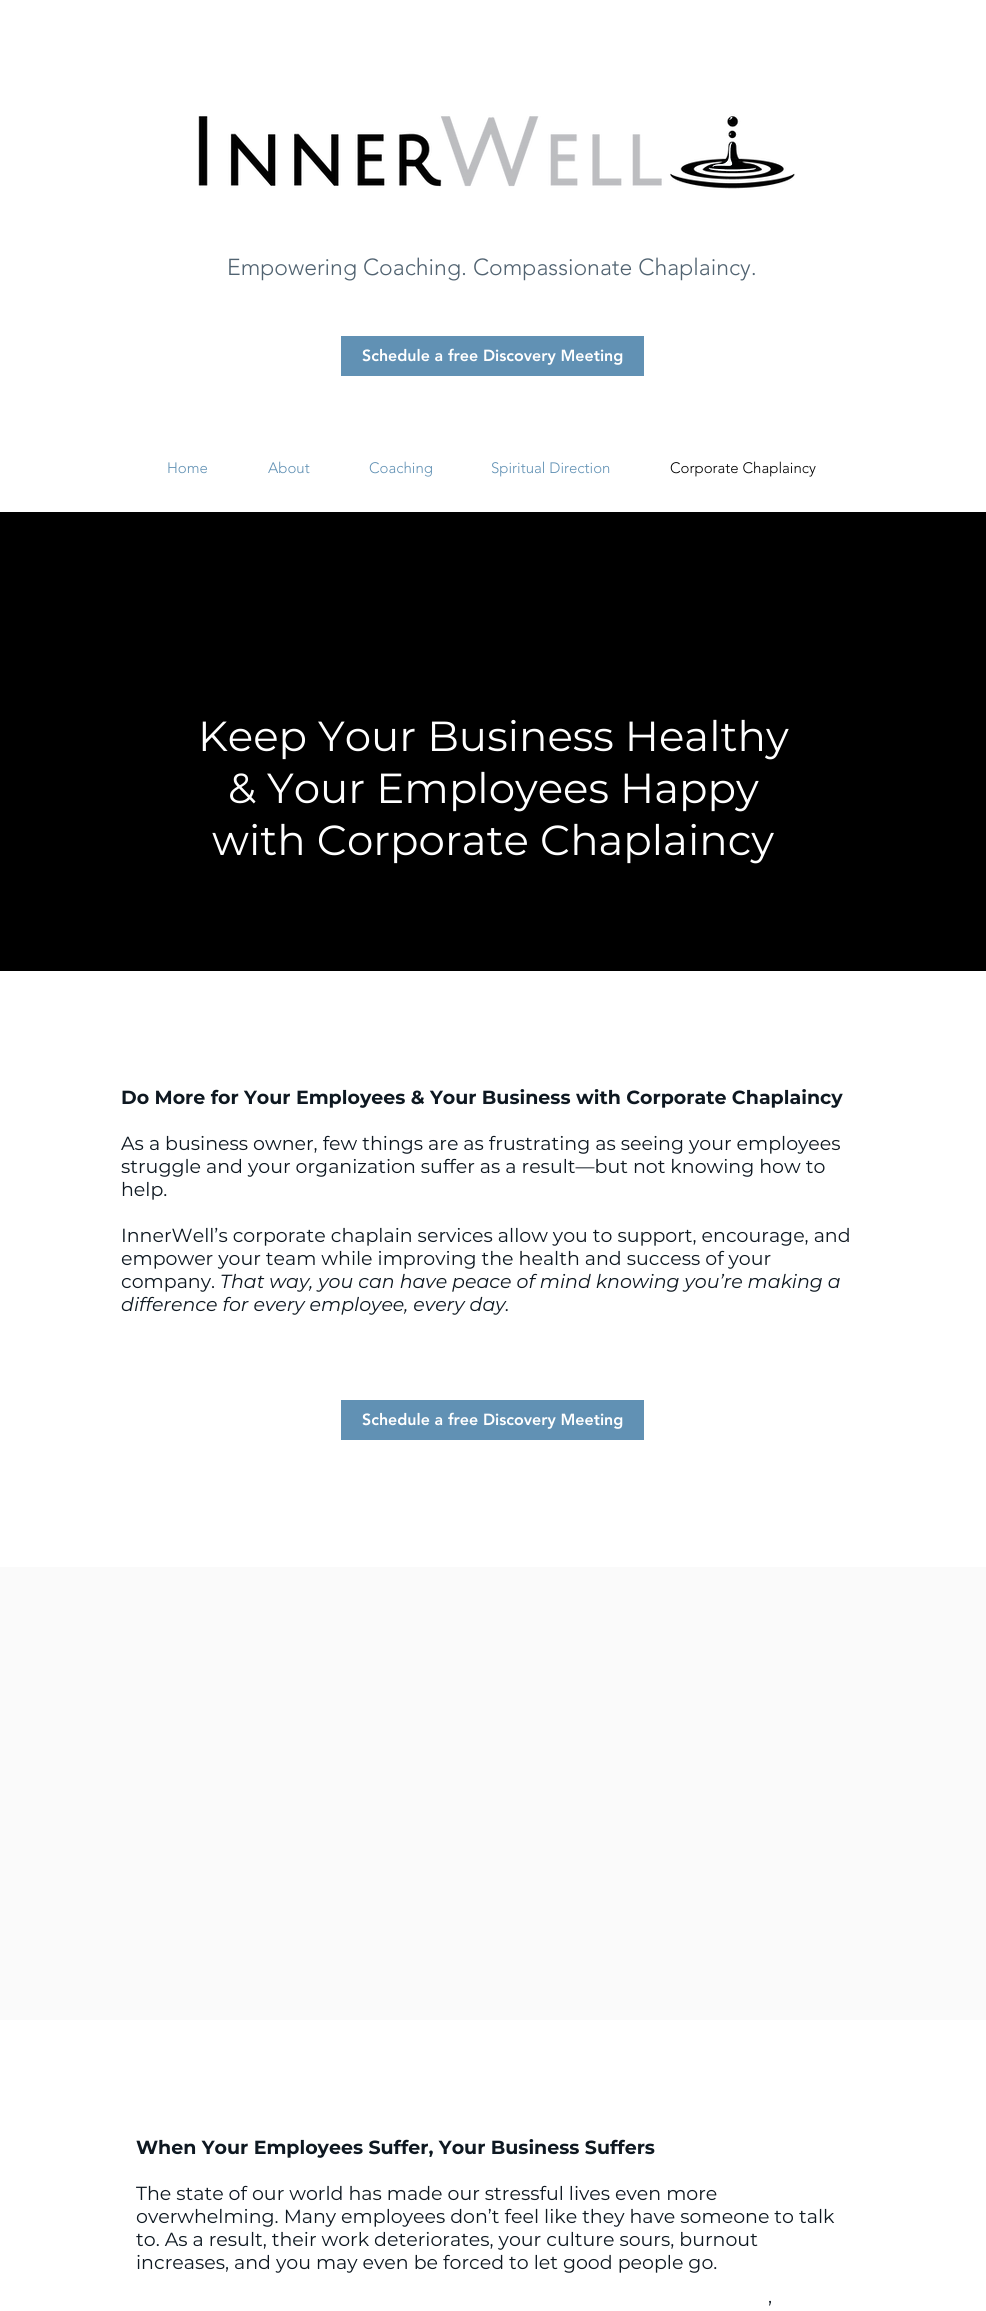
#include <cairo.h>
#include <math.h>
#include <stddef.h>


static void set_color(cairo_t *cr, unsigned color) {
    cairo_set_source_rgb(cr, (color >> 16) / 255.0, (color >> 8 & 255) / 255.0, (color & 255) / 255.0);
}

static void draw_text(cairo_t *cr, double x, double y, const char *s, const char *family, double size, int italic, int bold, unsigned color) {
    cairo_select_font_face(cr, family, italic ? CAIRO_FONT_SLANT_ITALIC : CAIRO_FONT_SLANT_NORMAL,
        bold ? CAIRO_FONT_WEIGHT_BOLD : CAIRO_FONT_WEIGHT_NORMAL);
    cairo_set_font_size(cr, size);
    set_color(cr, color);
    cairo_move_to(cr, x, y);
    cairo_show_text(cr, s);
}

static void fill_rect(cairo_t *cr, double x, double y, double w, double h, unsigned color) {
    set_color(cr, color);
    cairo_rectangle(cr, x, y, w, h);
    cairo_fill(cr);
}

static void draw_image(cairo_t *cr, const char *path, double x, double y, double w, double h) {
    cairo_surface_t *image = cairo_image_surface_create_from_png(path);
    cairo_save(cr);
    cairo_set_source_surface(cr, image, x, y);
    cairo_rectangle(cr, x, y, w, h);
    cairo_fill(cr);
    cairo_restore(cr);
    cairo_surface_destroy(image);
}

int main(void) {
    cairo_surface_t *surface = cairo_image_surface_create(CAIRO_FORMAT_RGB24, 986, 2311);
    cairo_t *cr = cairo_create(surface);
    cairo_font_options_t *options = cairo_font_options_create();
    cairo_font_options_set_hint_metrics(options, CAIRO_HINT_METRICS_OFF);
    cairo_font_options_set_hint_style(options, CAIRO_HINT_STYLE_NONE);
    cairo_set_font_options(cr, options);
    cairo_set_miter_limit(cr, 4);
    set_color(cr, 0xFFFFFF);
    cairo_paint(cr);
    draw_image(cr, "assets/img1.png", 198, 114, 597, 76);
    draw_text(cr, 227, 275, "Empowering Coaching. Compassionate Chaplaincy.", "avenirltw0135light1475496 Light", 23, 0, 0, 0x516371);
    fill_rect(cr, 341, 336, 303, 40, 0x6191B4);
    draw_text(cr, 362, 361, "Schedule a free Discovery Meeting", "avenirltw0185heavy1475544 Black", 16, 0, 0, 0xFFFFFF);
    draw_text(cr, 167, 473, "Home", "avenirltw0135light1475496 Light", 15, 0, 0, 0x6191B4);
    draw_text(cr, 268, 473, "About", "avenirltw0135light1475496 Light", 15, 0, 0, 0x6191B4);
    draw_text(cr, 369, 473, "Coaching", "avenirltw0135light1475496 Light", 15, 0, 0, 0x6191B4);
    draw_text(cr, 491, 473, "Spiritual Direction", "avenirltw0135light1475496 Light", 15, 0, 0, 0x6191B4);
    draw_text(cr, 670, 473, "Corporate Chaplaincy", "avenirltw0135light1475496 Light", 15, 0, 0, 0x000000);
    fill_rect(cr, 0, 512, 986, 459, 0x000000);
    draw_text(cr, 198, 751, "Keep Your Business Healthy", "Montserrat", 42, 0, 0, 0xFFFFFF);
    draw_text(cr, 228, 803, "& Your Employees Happy", "Montserrat", 42, 0, 0, 0xFFFFFF);
    draw_text(cr, 212, 855, "with Corporate Chaplaincy", "Montserrat", 42, 0, 0, 0xFFFFFF);
    draw_text(cr, 121, 1104, "Do More for Your Employees & Your Business with Corporate Chaplaincy", "Montserrat", 19, 0, 1, 0x0E1821);
    draw_text(cr, 121, 1150, "As a business owner, few things are as frustrating as seeing your employees", "Montserrat", 19, 0, 0, 0x0E1821);
    draw_text(cr, 121, 1173, "struggle and your organization suffer as a result—but not knowing how to", "Montserrat", 19, 0, 0, 0x0E1821);
    draw_text(cr, 121, 1196, "help.", "Montserrat", 19, 0, 0, 0x0E1821);
    draw_text(cr, 121, 1242, "InnerWell’s corporate chaplain services allow you to support, encourage, and", "Montserrat", 19, 0, 0, 0x0E1821);
    draw_text(cr, 121, 1265, "empower your team while improving the health and success of your", "Montserrat", 19, 0, 0, 0x0E1821);
    draw_text(cr, 121, 1288, "company.", "Montserrat", 19, 0, 0, 0x0E1821);
    draw_text(cr, 220, 1288, "That way, you can have peace of mind knowing you’re making a", "Montserrat", 19, 1, 0, 0x0E1821);
    draw_text(cr, 121, 1311, "difference for every employee, every day.", "Montserrat", 19, 1, 0, 0x0E1821);
    fill_rect(cr, 341, 1400, 303, 40, 0x6191B4);
    draw_text(cr, 362, 1425, "Schedule a free Discovery Meeting", "avenirltw0185heavy1475544 Black", 16, 0, 0, 0xFFFFFF);
    fill_rect(cr, 0, 1567, 986, 453, 0xFAFAFA);
    draw_text(cr, 136, 2154, "When Your Employees Suffer, Your Business Suffers", "Montserrat", 19, 0, 1, 0x0E1821);
    draw_text(cr, 136, 2200, "The state of our world has made our stressful lives even more", "Montserrat", 19, 0, 0, 0x0E1821);
    draw_text(cr, 136, 2223, "overwhelming. Many employees don’t feel like they have someone to talk", "Montserrat", 19, 0, 0, 0x0E1821);
    draw_text(cr, 136, 2246, "to. As a result, their work deteriorates, your culture sours, burnout", "Montserrat", 19, 0, 0, 0x0E1821);
    draw_text(cr, 136, 2269, "increases, and you may even be forced to let good people go.", "Montserrat", 19, 0, 0, 0x0E1821);
    draw_text(cr, 768, 2315, "’", "Montserrat", 19, 0, 0, 0x0E1821);
    cairo_surface_write_to_png(surface, "output.png");
    cairo_font_options_destroy(options);
    cairo_destroy(cr);
    cairo_surface_destroy(surface);
    return 0;
}
